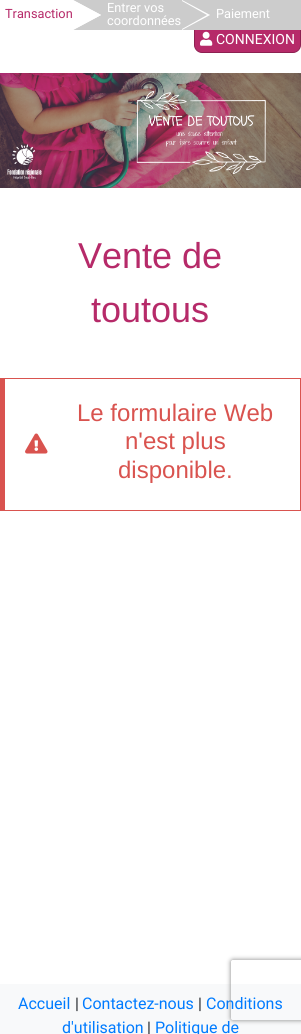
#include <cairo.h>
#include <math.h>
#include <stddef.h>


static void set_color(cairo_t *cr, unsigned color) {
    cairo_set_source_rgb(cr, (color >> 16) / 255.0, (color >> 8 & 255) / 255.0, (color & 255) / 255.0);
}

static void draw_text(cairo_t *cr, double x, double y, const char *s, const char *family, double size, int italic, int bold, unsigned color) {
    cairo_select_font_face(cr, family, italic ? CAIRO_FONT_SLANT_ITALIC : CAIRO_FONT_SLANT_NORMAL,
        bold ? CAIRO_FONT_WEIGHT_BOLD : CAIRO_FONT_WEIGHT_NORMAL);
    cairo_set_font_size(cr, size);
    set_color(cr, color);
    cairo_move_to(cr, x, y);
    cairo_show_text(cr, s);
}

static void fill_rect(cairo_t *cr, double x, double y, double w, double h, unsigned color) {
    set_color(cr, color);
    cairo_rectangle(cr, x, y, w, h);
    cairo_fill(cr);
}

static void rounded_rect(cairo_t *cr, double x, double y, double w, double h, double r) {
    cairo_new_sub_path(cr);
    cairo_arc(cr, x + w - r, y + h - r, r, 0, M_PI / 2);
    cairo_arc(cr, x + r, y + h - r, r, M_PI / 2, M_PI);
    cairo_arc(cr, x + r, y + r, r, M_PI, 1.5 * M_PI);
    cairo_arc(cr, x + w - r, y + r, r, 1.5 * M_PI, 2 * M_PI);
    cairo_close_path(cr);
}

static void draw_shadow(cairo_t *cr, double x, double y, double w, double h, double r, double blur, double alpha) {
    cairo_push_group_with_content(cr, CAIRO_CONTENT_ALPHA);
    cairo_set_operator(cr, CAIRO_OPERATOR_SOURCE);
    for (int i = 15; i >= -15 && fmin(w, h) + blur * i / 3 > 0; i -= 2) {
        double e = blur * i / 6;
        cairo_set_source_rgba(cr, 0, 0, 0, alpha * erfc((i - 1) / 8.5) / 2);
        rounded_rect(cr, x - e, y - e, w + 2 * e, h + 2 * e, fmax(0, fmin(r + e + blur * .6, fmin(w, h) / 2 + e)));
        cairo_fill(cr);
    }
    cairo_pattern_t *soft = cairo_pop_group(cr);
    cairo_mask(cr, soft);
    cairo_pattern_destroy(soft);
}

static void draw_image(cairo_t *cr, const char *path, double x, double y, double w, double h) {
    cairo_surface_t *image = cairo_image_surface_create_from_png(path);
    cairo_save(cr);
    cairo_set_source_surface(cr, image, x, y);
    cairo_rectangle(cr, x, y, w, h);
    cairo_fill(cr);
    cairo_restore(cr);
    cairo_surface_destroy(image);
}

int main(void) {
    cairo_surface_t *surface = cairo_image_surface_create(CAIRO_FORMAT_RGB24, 301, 1034);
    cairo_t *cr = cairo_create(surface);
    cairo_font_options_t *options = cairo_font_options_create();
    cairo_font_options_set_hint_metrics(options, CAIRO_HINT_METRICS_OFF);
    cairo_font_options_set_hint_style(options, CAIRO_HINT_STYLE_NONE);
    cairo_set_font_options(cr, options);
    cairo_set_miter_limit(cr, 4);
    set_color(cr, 0xFFFFFF);
    cairo_paint(cr);
    draw_text(cr, 5, 18, "Transaction", "Roboto", 12.75, 0, 0, 0xB62A69);
    set_color(cr, 0xCCCCCC);
    cairo_new_path(cr);
    cairo_move_to(cr, 73, 0);
    cairo_line_to(cr, 116, 0);
    cairo_line_to(cr, 101, 15);
    cairo_close_path(cr);
    cairo_fill(cr);
    fill_rect(cr, 101, 14, 1, 2, 0xCCCCCC);
    cairo_new_path(cr);
    cairo_move_to(cr, 116, 30);
    cairo_line_to(cr, 73, 30);
    cairo_line_to(cr, 101, 15);
    cairo_close_path(cr);
    cairo_fill(cr);
    set_color(cr, 0xFFFFFF);
    cairo_new_path(cr);
    cairo_move_to(cr, 73, 30);
    cairo_line_to(cr, 73, 0);
    cairo_line_to(cr, 101, 15);
    cairo_close_path(cr);
    cairo_fill(cr);
    set_color(cr, 0xB62A69);
    cairo_new_path(cr);
    cairo_move_to(cr, 194.5, 26.5);
    cairo_line_to(cr, 300.5, 26.5);
    cairo_line_to(cr, 300.5, 45);
    cairo_curve_to(cr, 300.5, 49, 297, 52.5, 293, 52.5);
    cairo_line_to(cr, 202, 52.5);
    cairo_curve_to(cr, 198, 52.5, 194.5, 49, 194.5, 45);
    cairo_close_path(cr);
    cairo_fill_preserve(cr);
    set_color(cr, 0x8D2051);
    cairo_set_line_width(cr, 1);
    cairo_stroke(cr);
    fill_rect(cr, 102, 0, 108, 30, 0xCCCCCC);
    cairo_new_path(cr);
    cairo_move_to(cr, 182, 0);
    cairo_line_to(cr, 225, 0);
    cairo_line_to(cr, 210, 15);
    cairo_close_path(cr);
    cairo_fill(cr);
    fill_rect(cr, 210, 14, 1, 16, 0xCCCCCC);
    set_color(cr, 0xFFFFFF);
    cairo_new_path(cr);
    cairo_move_to(cr, 182, 30);
    cairo_line_to(cr, 182, 0);
    cairo_line_to(cr, 210, 15);
    cairo_close_path(cr);
    cairo_fill(cr);
    draw_text(cr, 107, 12, "Entrer vos", "Roboto", 12.75, 0, 0, 0xFFFFFF);
    draw_text(cr, 107, 25, "coordonnées", "Roboto", 12.75, 0, 0, 0xFFFFFF);
    set_color(cr, 0xCCCCCC);
    cairo_new_path(cr);
    cairo_move_to(cr, 182, 29);
    cairo_line_to(cr, 182, 1);
    cairo_line_to(cr, 207, 15);
    cairo_close_path(cr);
    cairo_fill(cr);
    fill_rect(cr, 211, 0, 90, 30, 0xCCCCCC);
    draw_text(cr, 216, 18, "Paiement", "Roboto", 12.75, 0, 0, 0xFFFFFF);
    draw_image(cr, "assets/img1.png", 200, 31, 13, 15);
    draw_text(cr, 216, 44, "CONNEXION", "Roboto", 14, 0, 0, 0xFFFFFF);
    draw_image(cr, "assets/img2.png", 0, 73, 301, 115);
    draw_text(cr, 78, 268, "Vente de", "Liberation Sans", 36, 0, 0, 0xB62A69);
    draw_text(cr, 91, 322, "toutous", "Liberation Sans", 36, 0, 0, 0xB62A69);
    fill_rect(cr, 0, 378, 301, 1, 0xD9534F);
    fill_rect(cr, 300, 378, 1, 133, 0xD9534F);
    fill_rect(cr, 0, 510, 301, 1, 0xD9534F);
    fill_rect(cr, 0, 378, 5, 133, 0xD9534F);
    draw_image(cr, "assets/img3.png", 25, 433, 23, 21);
    draw_text(cr, 77, 421, "Le formulaire Web", "Liberation Sans", 24, 0, 0, 0xD9534F);
    draw_text(cr, 125, 449, "n'est plus", "Liberation Sans", 24, 0, 0, 0xD9534F);
    draw_text(cr, 118, 478, "disponible.", "Liberation Sans", 24, 0, 0, 0xD9534F);
    fill_rect(cr, 0, 984, 301, 50, 0xF8F9FA);
    draw_text(cr, 18, 1009, "Accueil", "Roboto", 16, 0, 0, 0x007BFF);
    draw_text(cr, 75, 1009, "|", "Roboto", 16, 0, 0, 0x212529);
    draw_text(cr, 82, 1009, "Contactez-nous", "Roboto", 16, 0, 0, 0x007BFF);
    draw_text(cr, 198, 1009, "|", "Roboto", 16, 0, 0, 0x212529);
    draw_text(cr, 206, 1009, "Conditions", "Roboto", 16, 0, 0, 0x007BFF);
    draw_text(cr, 62, 1033, "d'utilisation", "Roboto", 16, 0, 0, 0x007BFF);
    draw_text(cr, 147, 1033, "|", "Roboto", 16, 0, 0, 0x212529);
    draw_text(cr, 155, 1033, "Politique de", "Roboto", 16, 0, 0, 0x007BFF);
    cairo_save(cr);
    cairo_set_fill_rule(cr, CAIRO_FILL_RULE_EVEN_ODD);
    cairo_new_path(cr);
    cairo_move_to(cr, 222, 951);
    cairo_line_to(cr, 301, 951);
    cairo_line_to(cr, 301, 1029);
    cairo_line_to(cr, 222, 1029);
    cairo_close_path(cr);
    cairo_move_to(cr, 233, 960);
    cairo_line_to(cr, 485, 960);
    cairo_curve_to(cr, 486, 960, 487, 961, 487, 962);
    cairo_line_to(cr, 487, 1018);
    cairo_curve_to(cr, 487, 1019, 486, 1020, 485, 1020);
    cairo_line_to(cr, 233, 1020);
    cairo_curve_to(cr, 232, 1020, 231, 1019, 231, 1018);
    cairo_line_to(cr, 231, 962);
    cairo_curve_to(cr, 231, 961, 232, 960, 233, 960);
    cairo_close_path(cr);
    cairo_clip(cr);
    set_color(cr, 0x808080);
    draw_shadow(cr, 231, 960, 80, 60, 2, 2.5, 1);
    cairo_restore(cr);
    cairo_surface_write_to_png(surface, "output.png");
    cairo_font_options_destroy(options);
    cairo_destroy(cr);
    cairo_surface_destroy(surface);
    return 0;
}
